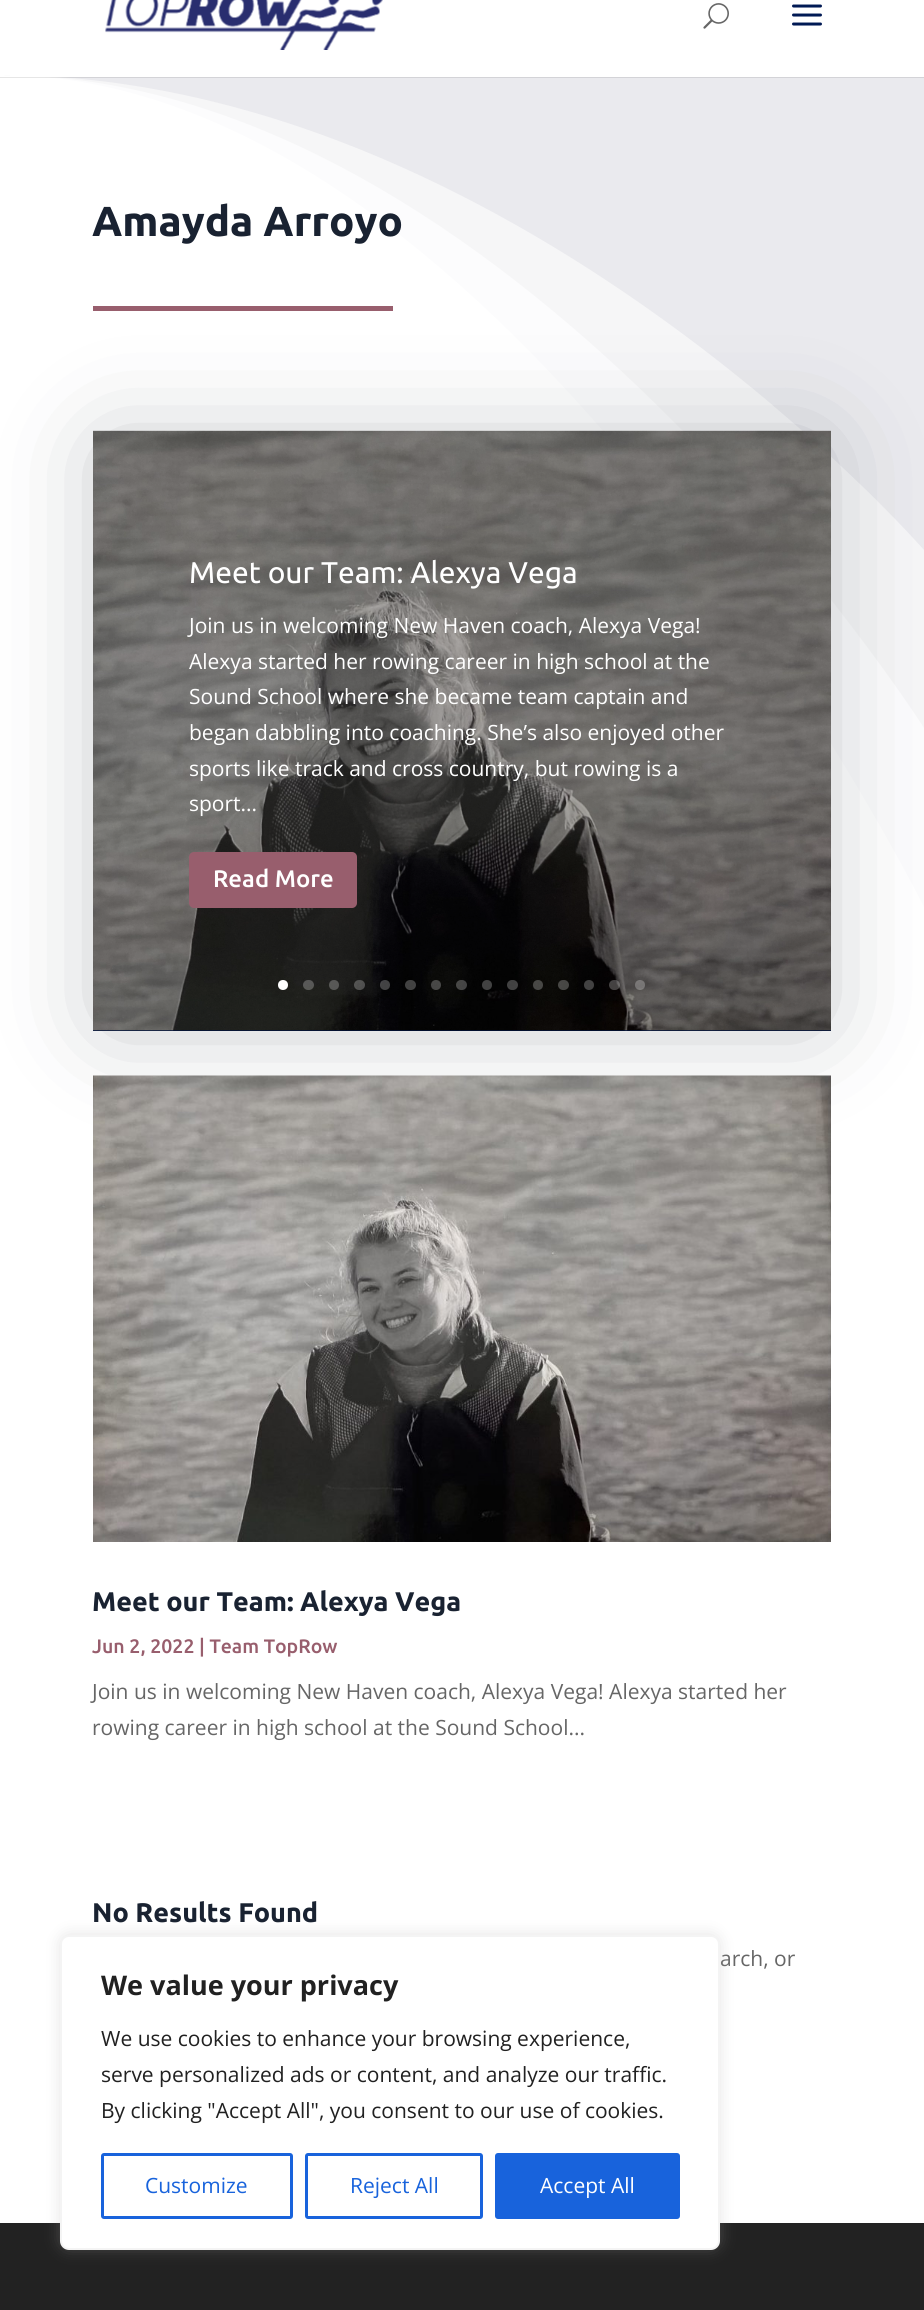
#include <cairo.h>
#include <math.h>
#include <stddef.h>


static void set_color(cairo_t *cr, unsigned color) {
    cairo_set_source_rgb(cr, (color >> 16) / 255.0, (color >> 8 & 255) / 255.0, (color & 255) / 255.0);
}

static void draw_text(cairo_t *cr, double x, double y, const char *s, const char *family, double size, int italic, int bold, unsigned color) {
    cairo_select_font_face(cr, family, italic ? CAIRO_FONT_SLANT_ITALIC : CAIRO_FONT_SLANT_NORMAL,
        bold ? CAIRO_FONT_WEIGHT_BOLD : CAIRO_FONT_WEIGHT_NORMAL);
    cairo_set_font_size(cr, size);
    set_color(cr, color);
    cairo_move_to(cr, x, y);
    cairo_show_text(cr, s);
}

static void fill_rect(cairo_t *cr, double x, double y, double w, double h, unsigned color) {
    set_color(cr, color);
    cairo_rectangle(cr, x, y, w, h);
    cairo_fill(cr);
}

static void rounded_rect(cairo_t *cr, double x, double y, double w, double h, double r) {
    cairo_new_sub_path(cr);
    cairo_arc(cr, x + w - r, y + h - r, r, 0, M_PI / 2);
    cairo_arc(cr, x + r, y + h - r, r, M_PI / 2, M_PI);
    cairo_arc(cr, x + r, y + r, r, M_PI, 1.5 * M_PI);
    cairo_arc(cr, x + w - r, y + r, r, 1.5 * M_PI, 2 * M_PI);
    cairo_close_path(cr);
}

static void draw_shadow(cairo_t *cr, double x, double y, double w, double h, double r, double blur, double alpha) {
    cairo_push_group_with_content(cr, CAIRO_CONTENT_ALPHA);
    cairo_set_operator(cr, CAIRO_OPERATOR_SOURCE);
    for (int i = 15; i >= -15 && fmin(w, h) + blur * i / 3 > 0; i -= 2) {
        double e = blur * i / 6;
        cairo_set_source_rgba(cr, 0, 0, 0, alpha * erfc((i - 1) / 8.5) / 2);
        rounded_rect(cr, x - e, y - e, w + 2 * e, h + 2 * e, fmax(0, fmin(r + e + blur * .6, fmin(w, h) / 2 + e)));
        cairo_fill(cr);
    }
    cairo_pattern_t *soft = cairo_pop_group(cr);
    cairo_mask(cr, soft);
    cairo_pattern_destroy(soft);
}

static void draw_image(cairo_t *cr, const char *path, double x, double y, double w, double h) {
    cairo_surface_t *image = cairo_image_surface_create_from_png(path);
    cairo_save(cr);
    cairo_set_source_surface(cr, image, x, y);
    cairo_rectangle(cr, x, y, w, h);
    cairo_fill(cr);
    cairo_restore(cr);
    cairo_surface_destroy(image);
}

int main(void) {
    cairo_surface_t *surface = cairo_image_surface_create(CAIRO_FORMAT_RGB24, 924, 2310);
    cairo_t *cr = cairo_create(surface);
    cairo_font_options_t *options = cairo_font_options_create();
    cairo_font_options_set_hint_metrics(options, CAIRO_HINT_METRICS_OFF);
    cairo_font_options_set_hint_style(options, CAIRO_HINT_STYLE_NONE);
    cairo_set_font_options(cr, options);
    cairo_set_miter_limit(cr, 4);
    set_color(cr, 0xFFFFFF);
    cairo_paint(cr);
    set_color(cr, 0xFCFCFD);
    cairo_new_path(cr);
    cairo_move_to(cr, 924, 75);
    cairo_line_to(cr, 0, 75);
    cairo_curve_to(cr, 510, 75, 924, 907, 924, 907);
    cairo_close_path(cr);
    cairo_fill(cr);
    set_color(cr, 0xF6F6F7);
    cairo_new_path(cr);
    cairo_move_to(cr, 924, 75);
    cairo_line_to(cr, 0, 75);
    cairo_curve_to(cr, 510, 75, 924, 728, 924, 728);
    cairo_close_path(cr);
    cairo_fill(cr);
    set_color(cr, 0xEAEAEE);
    cairo_new_path(cr);
    cairo_move_to(cr, 924, 75);
    cairo_line_to(cr, 0, 75);
    cairo_curve_to(cr, 510, 75, 924, 550, 924, 550);
    cairo_close_path(cr);
    cairo_fill(cr);
    cairo_set_source_rgba(cr, 0, 0, 0, 0.1);
    cairo_rectangle(cr, 0, 77, 924, 1);
    cairo_fill(cr);
    fill_rect(cr, 10, 75, 914, 2, 0xFFFFFF);
    draw_image(cr, "assets/img1.png", 105, 0, 278, 50);
    draw_image(cr, "assets/img2.png", 703, 3, 26, 26);
    draw_image(cr, "assets/img3.png", 792, 4, 30, 22);
    draw_text(cr, 92, 236, "Amayda Arroyo", "Ubuntu", 42, 0, 1, 0x192231);
    fill_rect(cr, 93, 306, 300, 5, 0x985E6D);
    set_color(cr, 0x192231);
    draw_shadow(cr, 108, 449, 708, 570, 0, 52.5, 0.3);
    fill_rect(cr, 93, 1030, 738, 1, 0x001954);
    draw_image(cr, "assets/img4.png", 93, 430, 738, 601);
    cairo_set_source_rgba(cr, 0, 0, 0, 0.3);
    cairo_rectangle(cr, 93, 431, 738, 600);
    cairo_fill(cr);
    draw_text(cr, 189, 583, "Meet our Team: Alexya Vega", "Ubuntu", 30, 0, 0, 0xFFFFFF);
    draw_text(cr, 189, 633, "Join us in welcoming New Haven coach, Alexya Vega!", "Open Sans", 21, 0, 0, 0xFFFFFF);
    draw_text(cr, 189, 669, "Alexya started her rowing career in high school at the", "Open Sans", 21, 0, 0, 0xFFFFFF);
    draw_text(cr, 189, 704, "Sound School where she became team captain and", "Open Sans", 21, 0, 0, 0xFFFFFF);
    draw_text(cr, 189, 740, "began dabbling into coaching. She’s also enjoyed other", "Open Sans", 21, 0, 0, 0xFFFFFF);
    draw_text(cr, 189, 776, "sports like track and cross country, but rowing is a", "Open Sans", 21, 0, 0, 0xFFFFFF);
    draw_text(cr, 189, 811, "sport...", "Open Sans", 21, 0, 0, 0xFFFFFF);
    set_color(cr, 0x985E6D);
    rounded_rect(cr, 189, 852, 168, 56, 5);
    cairo_fill(cr);
    draw_text(cr, 213, 887, "Read More", "Ubuntu Medium", 24, 0, 0, 0xFFFFFF);
    cairo_new_path(cr);
    cairo_arc(cr, 283, 985, 5, 0, 2 * M_PI);
    cairo_fill(cr);
    cairo_set_source_rgba(cr, 1, 1, 1, 0.25);
    rounded_rect(cr, 303, 980, 11, 10, 5);
    cairo_fill(cr);
    cairo_arc(cr, 334, 985, 5, 0, 2 * M_PI);
    cairo_fill(cr);
    rounded_rect(cr, 354, 980, 11, 10, 5);
    cairo_fill(cr);
    cairo_arc(cr, 385, 985, 5, 0, 2 * M_PI);
    cairo_fill(cr);
    rounded_rect(cr, 405, 980, 11, 10, 5);
    cairo_fill(cr);
    cairo_arc(cr, 436, 985, 5, 0, 2 * M_PI);
    cairo_fill(cr);
    rounded_rect(cr, 456, 980, 11, 10, 5);
    cairo_fill(cr);
    set_color(cr, 0x424242);
    cairo_arc(cr, 487, 985, 5, 0, 2 * M_PI);
    cairo_fill(cr);
    cairo_set_source_rgba(cr, 1, 1, 1, 0.25);
    rounded_rect(cr, 507, 980, 11, 10, 5);
    cairo_fill(cr);
    cairo_arc(cr, 538, 985, 5, 0, 2 * M_PI);
    cairo_fill(cr);
    rounded_rect(cr, 558, 980, 11, 10, 5);
    cairo_fill(cr);
    set_color(cr, 0x424242);
    cairo_arc(cr, 589, 985, 5, 0, 2 * M_PI);
    cairo_fill(cr);
    cairo_set_source_rgba(cr, 1, 1, 1, 0.25);
    rounded_rect(cr, 609, 980, 11, 10, 5);
    cairo_fill(cr);
    cairo_arc(cr, 640, 985, 5, 0, 2 * M_PI);
    cairo_fill(cr);
    draw_image(cr, "assets/img5.png", 93, 1075, 738, 467);
    draw_text(cr, 92, 1611, "Meet our Team: Alexya Vega", "Ubuntu", 27, 0, 1, 0x192231);
    draw_text(cr, 92, 1653, "Jun 2, 2022 | Team TopRow", "Ubuntu Medium", 19.5, 0, 0, 0x985E6D);
    draw_text(cr, 92, 1699, "Join us in welcoming New Haven coach, Alexya Vega! Alexya started her", "Open Sans", 21, 0, 0, 0x666666);
    draw_text(cr, 92, 1735, "rowing career in high school at the Sound School...", "Open Sans", 21, 0, 0, 0x666666);
    draw_text(cr, 92, 1922, "No Results Found", "Ubuntu", 27, 0, 1, 0x192231);
    draw_text(cr, 720, 1966, "arch, or", "Open Sans", 21, 0, 0, 0x666666);
    fill_rect(cr, 0, 2223, 924, 87, 0x222222);
    set_color(cr, 0xACABAB);
    draw_shadow(cr, 60, 1934, 660, 315, 9, 7.5, 0.3);
    set_color(cr, 0xFFFFFF);
    rounded_rect(cr, 61, 1936, 658, 313, 8);
    cairo_fill_preserve(cr);
    set_color(cr, 0xF4F4F4);
    cairo_stroke(cr);
    draw_text(cr, 101, 1995, "We value your privacy", "Open Sans", 27, 0, 1, 0x212121);
    draw_text(cr, 101, 2046, "We use cookies to enhance your browsing experience,", "Open Sans", 21, 0, 0, 0x212121);
    draw_text(cr, 101, 2082, "serve personalized ads or content, and analyze our traffic.", "Open Sans", 21, 0, 0, 0x212121);
    draw_text(cr, 101, 2118, "By clicking \"Accept All\", you consent to our use of cookies.", "Open Sans", 21, 0, 0, 0x212121);
    rounded_rect(cr, 102.5, 2154.5, 189, 63, 1.5);
    set_color(cr, 0x1863DC);
    cairo_set_line_width(cr, 3);
    cairo_stroke(cr);
    draw_text(cr, 145, 2193, "Customize", "Open Sans", 21, 0, 0, 0x1863DC);
    rounded_rect(cr, 306.5, 2154.5, 175, 63, 1.5);
    cairo_stroke(cr);
    draw_text(cr, 350, 2193, "Reject All", "Open Sans", 21, 0, 0, 0x1863DC);
    rounded_rect(cr, 496.5, 2154.5, 182, 63, 1.5);
    cairo_fill_preserve(cr);
    cairo_stroke(cr);
    draw_text(cr, 540, 2193, "Accept All", "Open Sans", 21, 0, 0, 0xFFFFFF);
    cairo_surface_write_to_png(surface, "output.png");
    cairo_font_options_destroy(options);
    cairo_destroy(cr);
    cairo_surface_destroy(surface);
    return 0;
}
